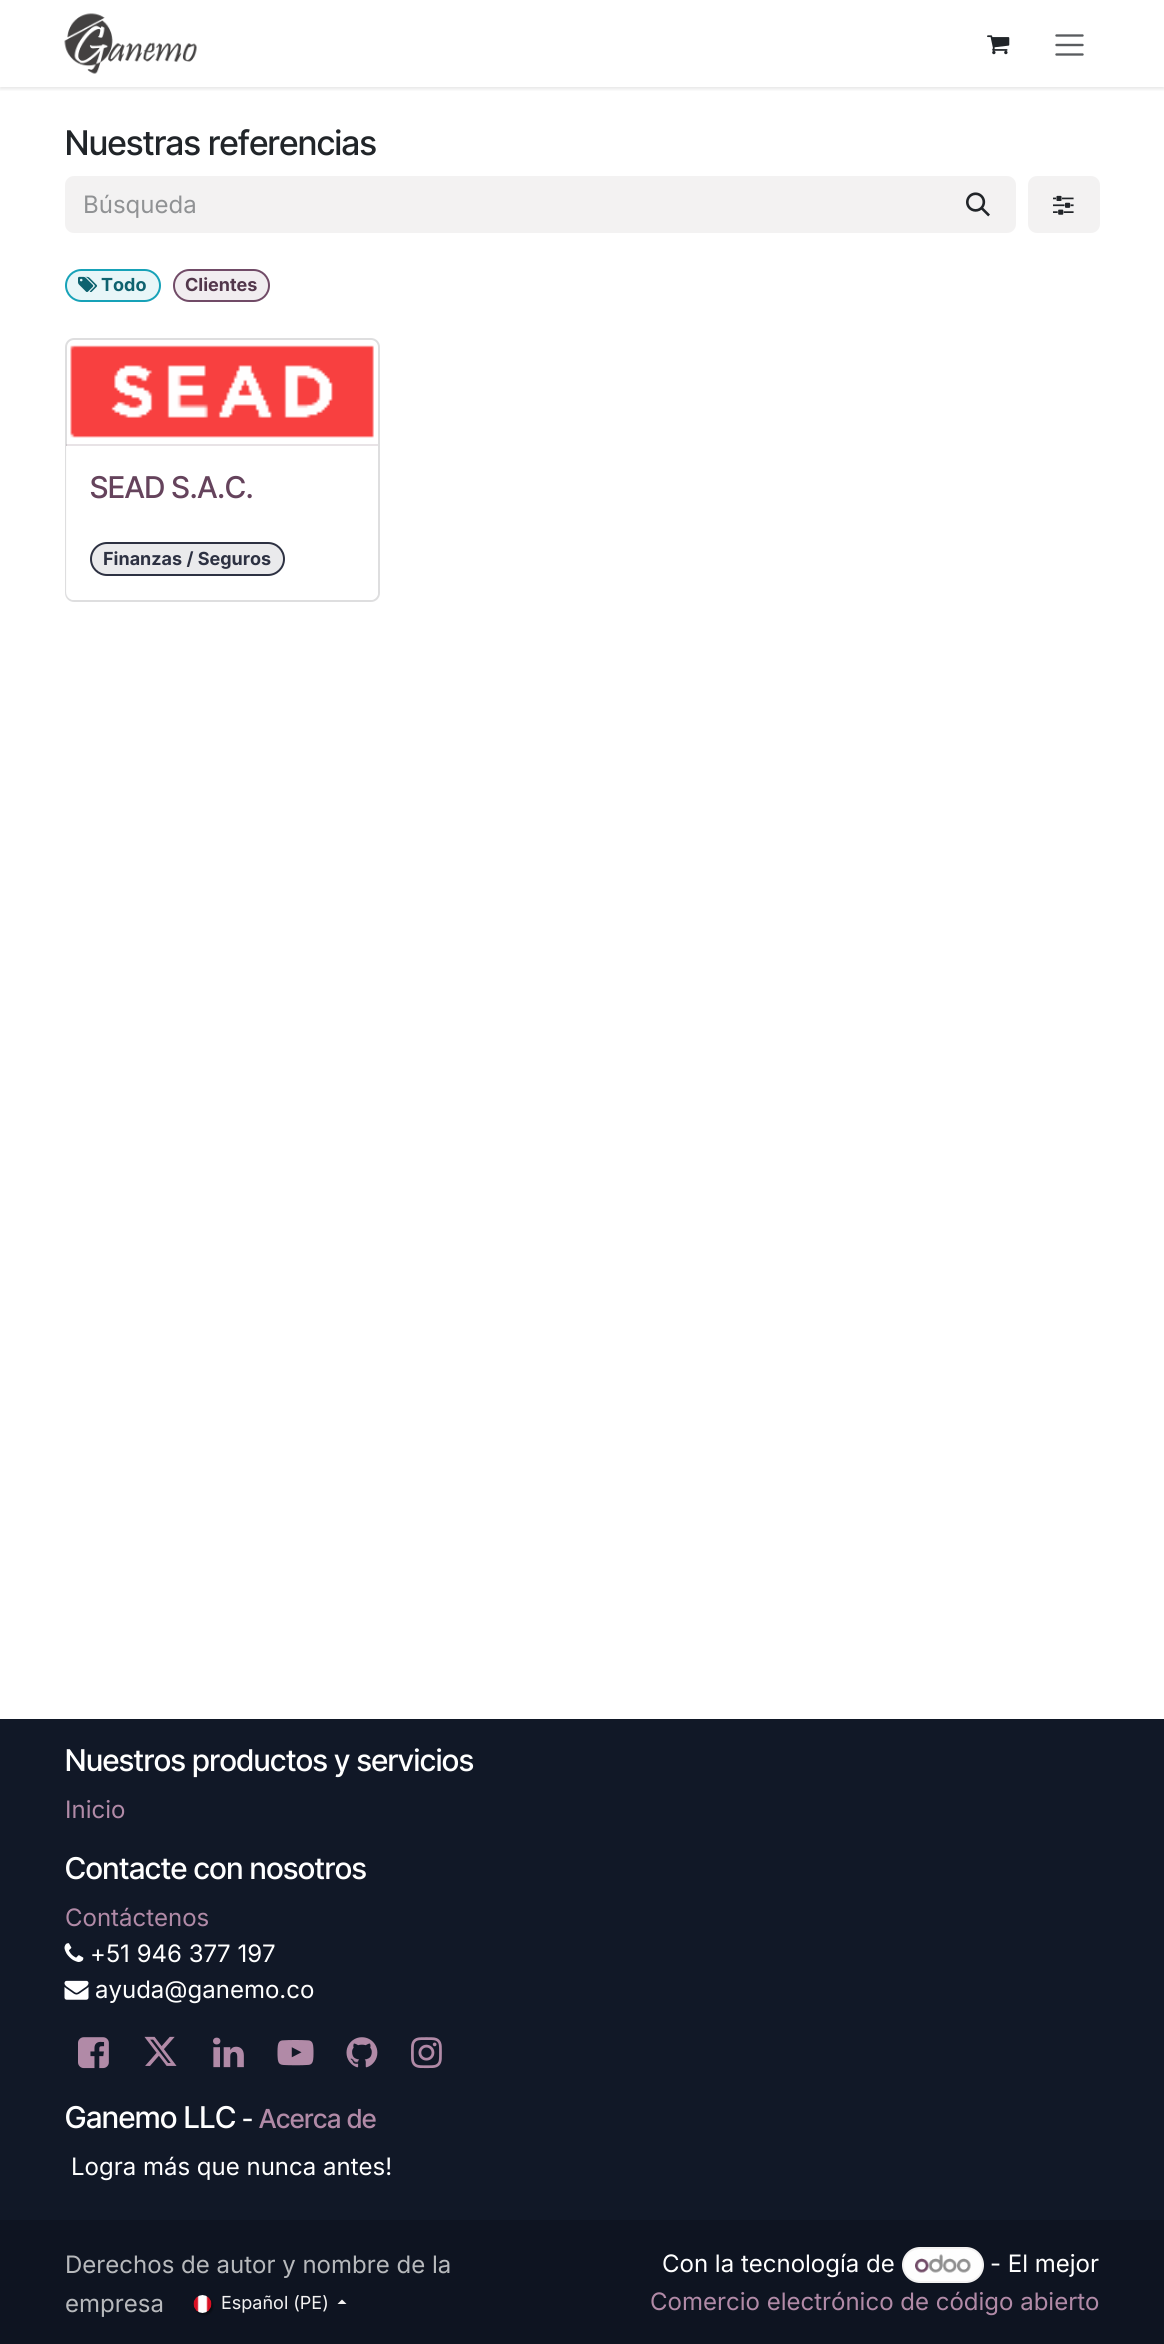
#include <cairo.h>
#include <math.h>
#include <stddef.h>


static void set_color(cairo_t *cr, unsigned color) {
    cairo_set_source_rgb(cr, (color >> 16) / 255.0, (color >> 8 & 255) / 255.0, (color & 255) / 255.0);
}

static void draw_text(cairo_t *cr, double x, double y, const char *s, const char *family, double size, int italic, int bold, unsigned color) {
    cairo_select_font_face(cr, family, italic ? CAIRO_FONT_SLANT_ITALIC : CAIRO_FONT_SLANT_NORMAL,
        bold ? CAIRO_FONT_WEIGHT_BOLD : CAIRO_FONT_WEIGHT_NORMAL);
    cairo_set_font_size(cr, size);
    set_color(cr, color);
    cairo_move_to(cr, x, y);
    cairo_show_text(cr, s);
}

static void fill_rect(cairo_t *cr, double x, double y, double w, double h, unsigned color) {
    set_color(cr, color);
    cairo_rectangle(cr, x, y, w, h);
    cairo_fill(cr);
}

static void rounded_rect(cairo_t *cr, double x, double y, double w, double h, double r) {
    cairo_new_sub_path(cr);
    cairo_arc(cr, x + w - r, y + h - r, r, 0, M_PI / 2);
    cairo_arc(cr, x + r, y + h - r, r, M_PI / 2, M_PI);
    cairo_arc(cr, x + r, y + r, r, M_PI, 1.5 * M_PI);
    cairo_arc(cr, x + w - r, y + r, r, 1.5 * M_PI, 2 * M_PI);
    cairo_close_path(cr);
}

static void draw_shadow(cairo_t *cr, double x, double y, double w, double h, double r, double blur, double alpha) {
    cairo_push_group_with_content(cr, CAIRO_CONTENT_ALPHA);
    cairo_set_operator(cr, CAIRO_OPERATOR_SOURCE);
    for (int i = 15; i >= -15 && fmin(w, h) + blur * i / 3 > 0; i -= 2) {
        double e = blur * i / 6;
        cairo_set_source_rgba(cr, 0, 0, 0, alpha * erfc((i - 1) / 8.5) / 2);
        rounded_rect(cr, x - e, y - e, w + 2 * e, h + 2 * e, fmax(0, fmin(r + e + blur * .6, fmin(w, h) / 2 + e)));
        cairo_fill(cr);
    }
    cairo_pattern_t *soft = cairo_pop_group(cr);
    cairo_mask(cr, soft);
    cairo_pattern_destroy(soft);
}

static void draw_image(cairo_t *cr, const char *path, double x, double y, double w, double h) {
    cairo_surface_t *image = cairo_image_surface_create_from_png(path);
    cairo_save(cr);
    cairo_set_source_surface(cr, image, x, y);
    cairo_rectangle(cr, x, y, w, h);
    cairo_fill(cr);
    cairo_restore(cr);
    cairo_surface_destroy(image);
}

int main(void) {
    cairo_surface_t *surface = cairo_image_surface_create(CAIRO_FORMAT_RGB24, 1164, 2344);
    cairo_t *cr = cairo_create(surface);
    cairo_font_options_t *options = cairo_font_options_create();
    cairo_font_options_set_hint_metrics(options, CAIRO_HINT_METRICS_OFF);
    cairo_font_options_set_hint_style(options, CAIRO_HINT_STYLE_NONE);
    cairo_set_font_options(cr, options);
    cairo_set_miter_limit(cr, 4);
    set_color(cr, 0xFFFFFF);
    cairo_paint(cr);
    cairo_save(cr);
    cairo_rectangle(cr, 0, 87, 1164, 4);
    cairo_clip(cr);
    set_color(cr, 0x000000);
    draw_shadow(cr, 0, 2, 1164, 87, 0, 2, 0.1);
    cairo_restore(cr);
    draw_image(cr, "assets/img1.png", 64, 13, 133, 61);
    draw_image(cr, "assets/img2.png", 987, 35, 23, 20);
    cairo_new_path(cr);
    cairo_move_to(cr, 1056.5, 35.5);
    cairo_line_to(cr, 1082.5, 35.5);
    cairo_move_to(cr, 1056.5, 45);
    cairo_line_to(cr, 1082.5, 45);
    cairo_move_to(cr, 1056.5, 54.5);
    cairo_line_to(cr, 1082.5, 54.5);
    set_color(cr, 0x595C5F);
    cairo_set_line_width(cr, 2.4);
    cairo_set_line_cap(cr, CAIRO_LINE_CAP_ROUND);
    cairo_stroke(cr);
    draw_text(cr, 65, 155, "Nuestras referencias", "Inter Tight Medium", 34, 0, 0, 0x212529);
    set_color(cr, 0xF3F2F2);
    cairo_new_path(cr);
    cairo_move_to(cr, 74, 176);
    cairo_line_to(cr, 942, 176);
    cairo_line_to(cr, 942, 233);
    cairo_line_to(cr, 74, 233);
    cairo_curve_to(cr, 69, 233, 65, 229, 65, 224);
    cairo_line_to(cr, 65, 185);
    cairo_curve_to(cr, 65, 180, 69, 176, 74, 176);
    cairo_close_path(cr);
    cairo_fill(cr);
    draw_text(cr, 83, 213, "Búsqueda", "Inter", 24, 0, 0, 0x909294);
    set_color(cr, 0xF3F2F2);
    cairo_new_path(cr);
    cairo_move_to(cr, 942, 177);
    cairo_line_to(cr, 1007, 177);
    cairo_curve_to(cr, 1011.5, 177, 1015, 180.5, 1015, 185);
    cairo_line_to(cr, 1015, 224);
    cairo_curve_to(cr, 1015, 228.5, 1011.5, 232, 1007, 232);
    cairo_line_to(cr, 942, 232);
    cairo_close_path(cr);
    cairo_fill_preserve(cr);
    cairo_set_line_width(cr, 2);
    cairo_set_line_cap(cr, CAIRO_LINE_CAP_BUTT);
    cairo_stroke(cr);
    draw_image(cr, "assets/img3.png", 966, 192, 24, 25);
    rounded_rect(cr, 1029, 177, 70, 55, 8);
    cairo_fill_preserve(cr);
    cairo_stroke(cr);
    draw_image(cr, "assets/img4.png", 1053, 195, 21, 20);
    set_color(cr, 0xE8F6F8);
    rounded_rect(cr, 66, 270, 94, 31, 15.5);
    cairo_fill_preserve(cr);
    set_color(cr, 0x17A2B8);
    cairo_stroke(cr);
    draw_image(cr, "assets/img5.png", 78, 276, 20, 16);
    draw_text(cr, 101, 291, "Todo", "Inter", 18, 0, 1, 0x0E626F);
    set_color(cr, 0xF1EDF0);
    rounded_rect(cr, 174, 270, 95, 31, 15.5);
    cairo_fill_preserve(cr);
    set_color(cr, 0x714B67);
    cairo_stroke(cr);
    draw_text(cr, 185, 291, "Clientes", "Inter", 18, 0, 1, 0x52374B);
    rounded_rect(cr, 66, 339, 313, 262, 8);
    set_color(cr, 0xDEDEDF);
    cairo_stroke(cr);
    cairo_set_source_rgba(cr, 0.396, 0.263, 0.361, 0.15);
    cairo_rectangle(cr, 66, 444, 312, 2);
    cairo_fill(cr);
    draw_image(cr, "assets/img6.png", 70, 345, 304, 93);
    cairo_set_source_rgba(cr, 1, 1, 1, 0.9);
    cairo_new_path(cr);
    cairo_move_to(cr, 66, 446);
    cairo_line_to(cr, 378, 446);
    cairo_line_to(cr, 378, 592);
    cairo_curve_to(cr, 378, 596.5, 374.5, 600, 370, 600);
    cairo_line_to(cr, 74, 600);
    cairo_curve_to(cr, 69.5, 600, 66, 596.5, 66, 592);
    cairo_close_path(cr);
    cairo_fill(cr);
    draw_text(cr, 90, 498, "SEAD S.A.C.", "Inter Tight Medium", 30, 0, 0, 0x65435C);
    set_color(cr, 0xEAEAEC);
    rounded_rect(cr, 91, 543, 193, 32, 16);
    cairo_fill_preserve(cr);
    set_color(cr, 0x2D3142);
    cairo_stroke(cr);
    draw_text(cr, 103, 565, "Finanzas / Seguros", "Inter", 18, 0, 1, 0x2D3142);
    fill_rect(cr, 0, 1719, 1164, 501, 0x111827);
    draw_text(cr, 65, 1771, "Nuestros productos y servicios", "Inter Tight Medium", 30, 0, 0, 0xFFFFFF);
    draw_text(cr, 65, 1818, "Inicio", "Inter", 24, 0, 0, 0xB18AA7);
    draw_text(cr, 65, 1879, "Contacte con nosotros", "Inter Tight Medium", 30, 0, 0, 0xFFFFFF);
    draw_text(cr, 65, 1926, "Contáctenos", "Inter", 24, 0, 0, 0xB18AA7);
    draw_image(cr, "assets/img7.png", 64, 1943, 20, 19);
    draw_text(cr, 90, 1962, "+51 946 377 197", "Inter", 24, 0, 0, 0xFFFFFF);
    draw_image(cr, "assets/img8.png", 64, 1980, 25, 20);
    draw_text(cr, 95, 1998, "ayuda@ganemo.co", "Inter", 24, 0, 0, 0xFFFFFF);
    draw_image(cr, "assets/img9.png", 78, 2037, 31, 32);
    draw_image(cr, "assets/img10.png", 144, 2036, 33, 30);
    draw_image(cr, "assets/img11.png", 213, 2037, 31, 31);
    draw_image(cr, "assets/img12.png", 277, 2040, 37, 26);
    draw_image(cr, "assets/img13.png", 346, 2037, 32, 31);
    draw_image(cr, "assets/img14.png", 411, 2037, 31, 32);
    draw_text(cr, 65, 2128, "Ganemo LLC", "Inter Tight Medium", 30, 0, 0, 0xFFFFFF);
    draw_text(cr, 242, 2128, "-", "Inter Tight Medium", 26.25, 0, 0, 0xFFFFFF);
    draw_text(cr, 259, 2128, "Acerca de", "Inter Tight Medium", 26.25, 0, 0, 0xB18AA7);
    draw_text(cr, 71, 2175, "Logra más que nunca antes!", "Inter", 24, 0, 0, 0xFFFFFF);
    fill_rect(cr, 0, 2220, 1164, 124, 0x0E1421);
    draw_text(cr, 65, 2273, "Derechos de autor y nombre de la", "Inter", 24, 0, 0, 0xB7B9BC);
    draw_text(cr, 65, 2312, "empresa", "Inter", 24, 0, 0, 0xB7B9BC);
    set_color(cr, 0x000000);
    draw_shadow(cr, 195, 2297, 18, 18, 9, 1, 0.43);
    draw_text(cr, 221, 2309, "Español (PE)", "Inter", 18, 0, 0, 0xF3F2F2);
    draw_image(cr, "assets/img15.png", 193, 2295, 19, 18);
    cairo_new_path(cr);
    cairo_move_to(cr, 346.5, 2304);
    cairo_line_to(cr, 337.5, 2304);
    cairo_line_to(cr, 342, 2299.5);
    cairo_close_path(cr);
    cairo_fill(cr);
    draw_text(cr, 662, 2272, "Con la tecnología de", "Inter", 24, 0, 0, 0xFFFFFF);
    set_color(cr, 0xFEFEFE);
    rounded_rect(cr, 903, 2248, 80, 34, 17);
    cairo_fill_preserve(cr);
    set_color(cr, 0xF3F2F2);
    cairo_stroke(cr);
    draw_image(cr, "assets/img16.png", 915, 2254, 56, 19);
    draw_text(cr, 990, 2272, "- El mejor", "Inter", 24, 0, 0, 0xFFFFFF);
    draw_text(cr, 650, 2310, "Comercio electrónico de código abierto", "Inter", 24, 0, 0, 0xB18AA7);
    cairo_surface_write_to_png(surface, "output.png");
    cairo_font_options_destroy(options);
    cairo_destroy(cr);
    cairo_surface_destroy(surface);
    return 0;
}
